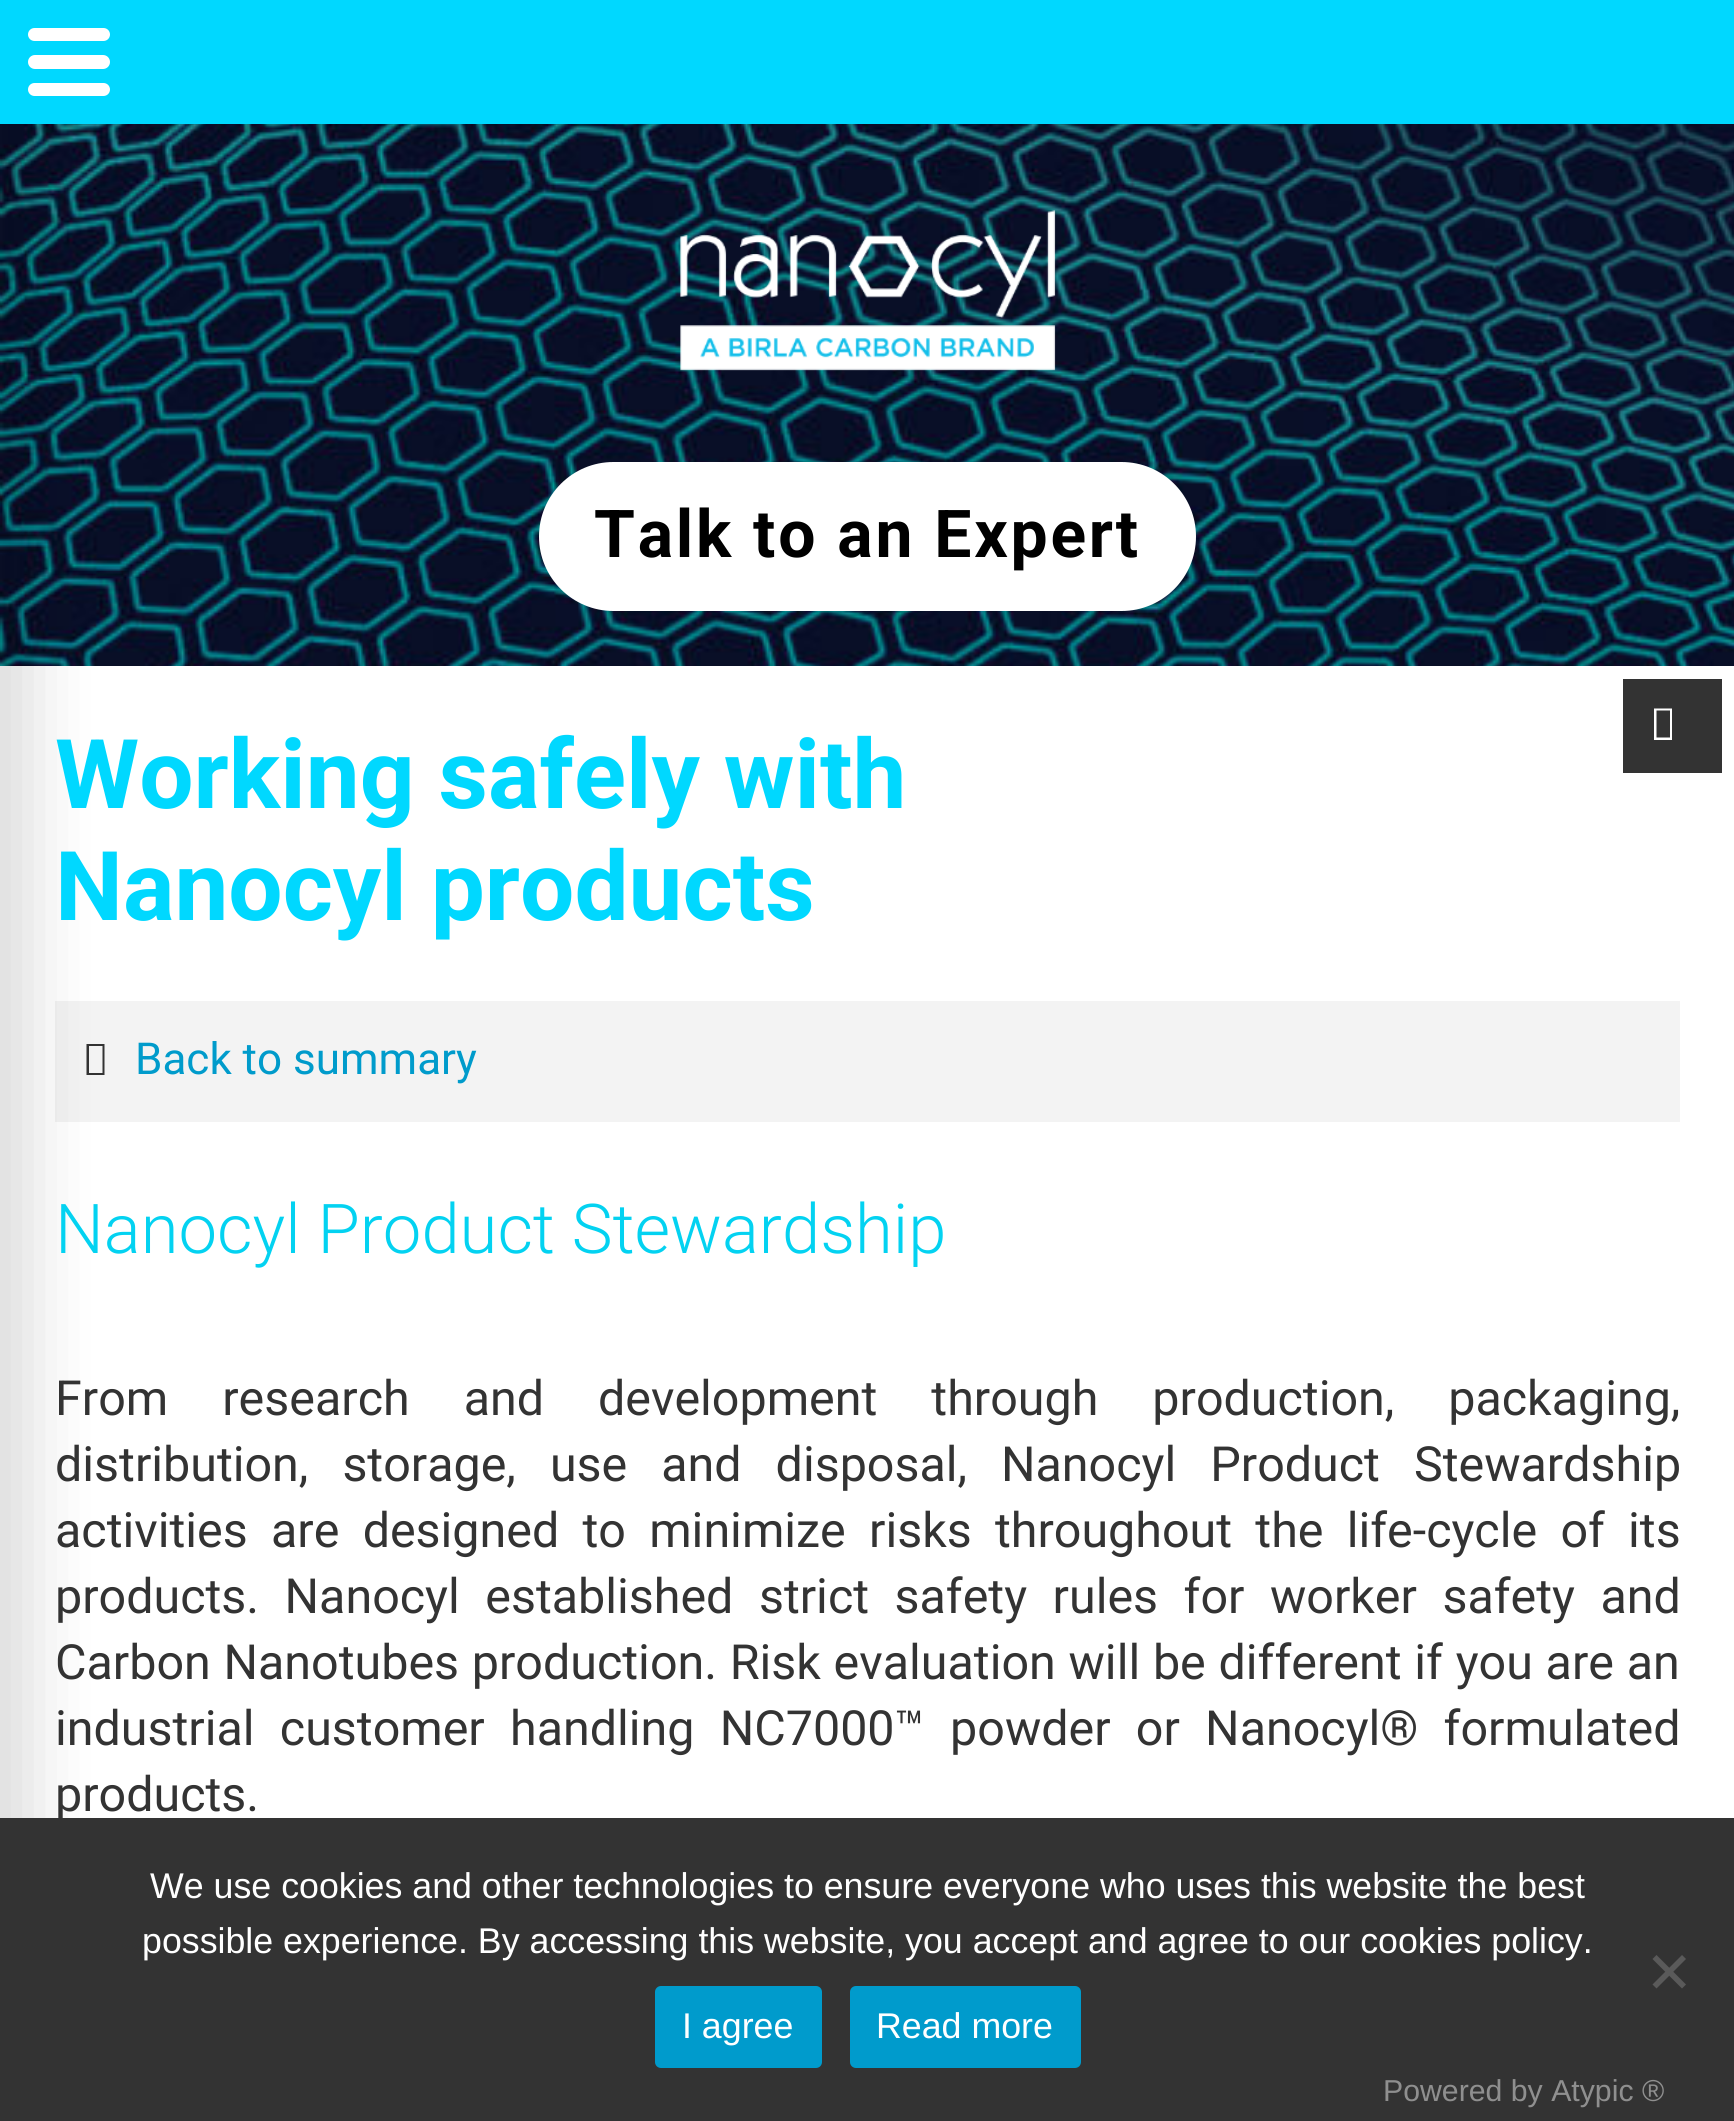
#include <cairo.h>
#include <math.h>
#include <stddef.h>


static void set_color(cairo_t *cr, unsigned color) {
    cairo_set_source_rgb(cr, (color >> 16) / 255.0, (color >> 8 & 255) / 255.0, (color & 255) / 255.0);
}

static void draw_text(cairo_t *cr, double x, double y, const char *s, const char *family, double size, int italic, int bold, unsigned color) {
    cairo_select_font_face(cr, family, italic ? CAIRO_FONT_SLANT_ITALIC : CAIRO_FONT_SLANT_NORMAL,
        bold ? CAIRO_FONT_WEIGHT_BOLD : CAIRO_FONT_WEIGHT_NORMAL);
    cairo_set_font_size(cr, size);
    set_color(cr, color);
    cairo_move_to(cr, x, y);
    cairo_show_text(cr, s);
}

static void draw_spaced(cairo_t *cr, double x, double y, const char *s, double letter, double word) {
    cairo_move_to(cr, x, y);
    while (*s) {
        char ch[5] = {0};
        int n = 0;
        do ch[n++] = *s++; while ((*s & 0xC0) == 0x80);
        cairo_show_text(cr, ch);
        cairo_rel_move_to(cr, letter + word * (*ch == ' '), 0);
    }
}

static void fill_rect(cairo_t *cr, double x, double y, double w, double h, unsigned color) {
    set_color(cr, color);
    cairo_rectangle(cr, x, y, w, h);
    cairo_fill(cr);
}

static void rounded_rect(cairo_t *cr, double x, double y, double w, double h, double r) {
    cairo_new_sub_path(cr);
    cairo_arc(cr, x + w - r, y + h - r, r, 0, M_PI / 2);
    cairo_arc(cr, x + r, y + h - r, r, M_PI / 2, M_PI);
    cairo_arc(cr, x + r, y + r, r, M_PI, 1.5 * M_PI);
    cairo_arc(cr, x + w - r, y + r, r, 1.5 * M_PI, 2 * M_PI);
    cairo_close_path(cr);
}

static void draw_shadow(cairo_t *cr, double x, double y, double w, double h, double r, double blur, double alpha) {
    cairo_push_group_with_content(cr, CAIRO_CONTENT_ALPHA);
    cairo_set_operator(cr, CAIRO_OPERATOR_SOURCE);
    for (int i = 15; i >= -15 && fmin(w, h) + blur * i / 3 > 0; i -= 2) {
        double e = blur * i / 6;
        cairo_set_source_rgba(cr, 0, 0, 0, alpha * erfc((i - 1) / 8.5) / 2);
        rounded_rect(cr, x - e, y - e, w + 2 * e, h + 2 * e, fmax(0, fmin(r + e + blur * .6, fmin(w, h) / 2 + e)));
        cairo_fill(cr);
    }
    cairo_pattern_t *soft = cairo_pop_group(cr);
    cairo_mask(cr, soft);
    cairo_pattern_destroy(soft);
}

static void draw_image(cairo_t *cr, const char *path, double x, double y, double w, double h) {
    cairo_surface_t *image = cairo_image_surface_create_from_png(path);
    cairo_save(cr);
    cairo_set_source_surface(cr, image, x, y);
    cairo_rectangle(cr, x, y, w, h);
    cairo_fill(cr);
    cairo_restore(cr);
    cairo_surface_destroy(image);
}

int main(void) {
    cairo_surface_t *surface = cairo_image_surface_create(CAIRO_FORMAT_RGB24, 1734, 2121);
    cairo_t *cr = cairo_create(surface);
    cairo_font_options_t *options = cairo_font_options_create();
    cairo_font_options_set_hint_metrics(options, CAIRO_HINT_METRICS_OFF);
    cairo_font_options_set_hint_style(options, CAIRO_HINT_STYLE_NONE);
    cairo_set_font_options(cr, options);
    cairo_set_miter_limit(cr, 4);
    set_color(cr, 0xFFFFFF);
    cairo_paint(cr);
    draw_image(cr, "assets/img1.png", 0, 124, 1734, 542);
    fill_rect(cr, 55, 1001, 1625, 121, 0xF3F3F3);
    set_color(cr, 0x333333);
    cairo_new_path(cr);
    cairo_move_to(cr, 86.5, 1075);
    cairo_line_to(cr, 86.5, 1044);
    cairo_line_to(cr, 104.5, 1044);
    cairo_line_to(cr, 104.5, 1075);
    cairo_close_path(cr);
    cairo_move_to(cr, 89, 1073);
    cairo_line_to(cr, 102.5, 1073);
    cairo_line_to(cr, 102.5, 1046);
    cairo_line_to(cr, 89, 1046);
    cairo_close_path(cr);
    cairo_fill(cr);
    set_color(cr, 0x000000);
    draw_shadow(cr, -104, 0, 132, 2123, 0, 34.5, 0.15);
    fill_rect(cr, 0, 0, 1734, 124, 0x00D8FF);
    set_color(cr, 0xFFFFFF);
    rounded_rect(cr, 28, 28, 82, 13, 6.5);
    cairo_fill(cr);
    rounded_rect(cr, 28, 55, 82, 14, 7);
    cairo_fill(cr);
    rounded_rect(cr, 28, 83, 82, 13, 6.5);
    cairo_fill(cr);
    draw_image(cr, "assets/img2.png", 680, 210, 376, 161);
    rounded_rect(cr, 539, 462, 657, 149, 74.5);
    cairo_fill(cr);
    cairo_select_font_face(cr, "Roboto", CAIRO_FONT_SLANT_NORMAL, CAIRO_FONT_WEIGHT_BOLD);
    cairo_set_font_size(cr, 66);
    set_color(cr, 0x000000);
    draw_spaced(cr, 594, 557, "Talk to an Expert", 2.75, 0);
    draw_text(cr, 55, 808, "Working safely with", "Roboto", 96.25, 0, 1, 0x00D8FF);
    draw_text(cr, 55, 920, "Nanocyl products", "Roboto", 96.25, 0, 1, 0x00D8FF);
    fill_rect(cr, 1623, 679, 99, 94, 0x333333);
    set_color(cr, 0xFFFFFF);
    cairo_new_path(cr);
    cairo_move_to(cr, 1654, 740);
    cairo_line_to(cr, 1654, 708.5);
    cairo_line_to(cr, 1672, 708.5);
    cairo_line_to(cr, 1672, 740);
    cairo_close_path(cr);
    cairo_move_to(cr, 1656.5, 737.5);
    cairo_line_to(cr, 1670, 737.5);
    cairo_line_to(cr, 1670, 710.5);
    cairo_line_to(cr, 1656.5, 710.5);
    cairo_close_path(cr);
    cairo_fill(cr);
    draw_text(cr, 135, 1074, "Back to summary", "Roboto", 44, 0, 0, 0x009BCB);
    draw_text(cr, 55, 1253, "Nanocyl Product Stewardship", "Roboto Light", 68.75, 0, 0, 0x03D2F1);
    cairo_select_font_face(cr, "Roboto", CAIRO_FONT_SLANT_NORMAL, CAIRO_FONT_WEIGHT_NORMAL);
    cairo_set_font_size(cr, 48.4);
    set_color(cr, 0x333333);
    draw_spaced(cr, 55, 1415, "From research and development through production, packaging,", 0, 42);
    draw_spaced(cr, 55, 1481, "distribution, storage, use and disposal, Nanocyl Product Stewardship", 0, 22);
    draw_spaced(cr, 55, 1547, "activities are designed to minimize risks throughout the life-cycle of its", 0, 11.25);
    draw_spaced(cr, 55, 1613, "products. Nanocyl established strict safety rules for worker safety and", 0, 13.5);
    draw_spaced(cr, 55, 1679, "Carbon Nanotubes production. Risk evaluation will be different if you are an", 0, 0.75);
    draw_spaced(cr, 55, 1745, "industrial customer handling NC7000™ powder or Nanocyl® formulated", 0, 13.25);
    draw_text(cr, 55, 1811, "products.", "Roboto", 48.4, 0, 0, 0x333333);
    fill_rect(cr, 0, 1818, 1734, 303, 0x333333);
    draw_text(cr, 150, 1898, "We use cookies and other technologies to ensure everyone who uses this website the best", "Liberation Sans", 35.75, 0, 0, 0xFFFFFF);
    draw_text(cr, 142, 1953, "possible experience. By accessing this website, you accept and agree to our cookies policy.", "Liberation Sans", 35.75, 0, 0, 0xFFFFFF);
    set_color(cr, 0x5A5A5A);
    cairo_new_path(cr);
    cairo_move_to(cr, 1682, 1955);
    cairo_line_to(cr, 1686, 1959);
    cairo_line_to(cr, 1656.5, 1988.5);
    cairo_line_to(cr, 1652.5, 1984.5);
    cairo_close_path(cr);
    cairo_fill(cr);
    cairo_new_path(cr);
    cairo_move_to(cr, 1652.5, 1959);
    cairo_line_to(cr, 1656.5, 1955);
    cairo_line_to(cr, 1686, 1984.5);
    cairo_line_to(cr, 1682, 1988.5);
    cairo_close_path(cr);
    cairo_fill(cr);
    set_color(cr, 0x009BCC);
    rounded_rect(cr, 655, 1986, 167, 82, 6);
    cairo_fill(cr);
    draw_text(cr, 682, 2038, "I agree", "Liberation Sans", 35.75, 0, 0, 0xFFFFFF);
    set_color(cr, 0x009BCC);
    rounded_rect(cr, 850, 1986, 231, 82, 6);
    cairo_fill(cr);
    draw_text(cr, 876, 2038, "Read more", "Liberation Sans", 35.75, 0, 0, 0xFFFFFF);
    draw_text(cr, 1383, 2101, "Powered by Atypic ®", "Liberation Sans", 30.25, 0, 0, 0x8F8F8F);
    cairo_surface_write_to_png(surface, "output.png");
    cairo_font_options_destroy(options);
    cairo_destroy(cr);
    cairo_surface_destroy(surface);
    return 0;
}
